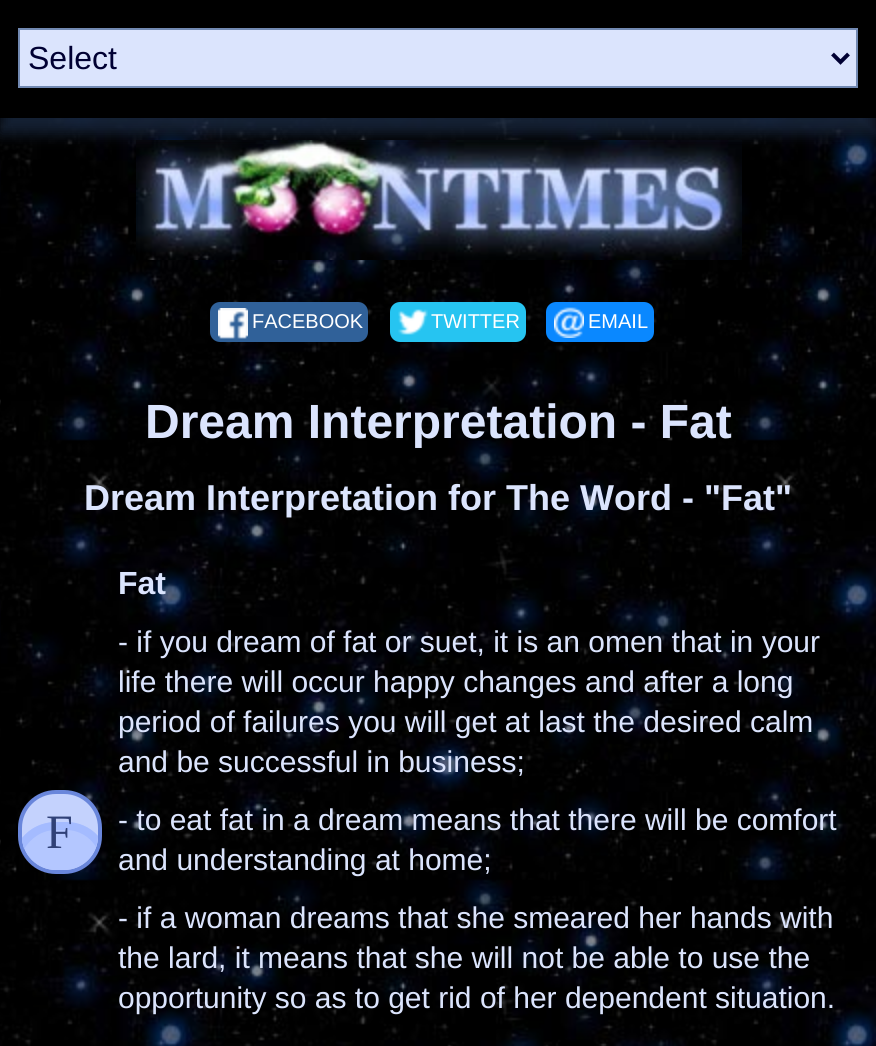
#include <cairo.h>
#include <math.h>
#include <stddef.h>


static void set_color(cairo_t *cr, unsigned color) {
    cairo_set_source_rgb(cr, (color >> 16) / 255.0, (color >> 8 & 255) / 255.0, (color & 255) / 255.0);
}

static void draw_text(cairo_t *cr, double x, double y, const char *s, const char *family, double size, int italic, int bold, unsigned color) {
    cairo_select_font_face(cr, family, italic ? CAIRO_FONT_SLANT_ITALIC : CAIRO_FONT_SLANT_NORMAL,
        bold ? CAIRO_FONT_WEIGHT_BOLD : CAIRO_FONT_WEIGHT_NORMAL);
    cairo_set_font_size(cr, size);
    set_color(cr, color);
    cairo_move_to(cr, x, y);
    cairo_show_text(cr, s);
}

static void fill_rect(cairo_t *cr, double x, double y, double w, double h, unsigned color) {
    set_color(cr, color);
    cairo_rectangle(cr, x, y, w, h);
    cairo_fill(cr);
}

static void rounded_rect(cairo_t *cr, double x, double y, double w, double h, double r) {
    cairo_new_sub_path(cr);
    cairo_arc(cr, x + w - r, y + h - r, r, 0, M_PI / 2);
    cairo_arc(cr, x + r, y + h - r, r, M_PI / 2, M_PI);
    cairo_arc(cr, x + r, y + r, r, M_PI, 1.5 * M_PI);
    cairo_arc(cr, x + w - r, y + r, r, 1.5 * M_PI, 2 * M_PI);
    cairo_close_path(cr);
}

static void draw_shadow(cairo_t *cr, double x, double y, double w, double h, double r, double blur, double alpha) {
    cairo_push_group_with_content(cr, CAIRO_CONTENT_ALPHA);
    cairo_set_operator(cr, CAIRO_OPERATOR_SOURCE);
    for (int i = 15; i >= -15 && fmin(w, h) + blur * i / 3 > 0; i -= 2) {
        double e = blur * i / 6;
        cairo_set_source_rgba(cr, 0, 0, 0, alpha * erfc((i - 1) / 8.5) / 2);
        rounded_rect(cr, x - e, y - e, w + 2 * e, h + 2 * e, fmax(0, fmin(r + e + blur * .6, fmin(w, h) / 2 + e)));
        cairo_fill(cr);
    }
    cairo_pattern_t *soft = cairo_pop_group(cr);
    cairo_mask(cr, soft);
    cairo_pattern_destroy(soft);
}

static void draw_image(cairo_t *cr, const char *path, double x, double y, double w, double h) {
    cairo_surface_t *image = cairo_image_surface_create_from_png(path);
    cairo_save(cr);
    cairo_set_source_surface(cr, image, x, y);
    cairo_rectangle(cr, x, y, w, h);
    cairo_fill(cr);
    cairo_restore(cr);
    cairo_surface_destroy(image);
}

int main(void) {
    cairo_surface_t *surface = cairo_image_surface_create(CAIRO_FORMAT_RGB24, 876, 1046);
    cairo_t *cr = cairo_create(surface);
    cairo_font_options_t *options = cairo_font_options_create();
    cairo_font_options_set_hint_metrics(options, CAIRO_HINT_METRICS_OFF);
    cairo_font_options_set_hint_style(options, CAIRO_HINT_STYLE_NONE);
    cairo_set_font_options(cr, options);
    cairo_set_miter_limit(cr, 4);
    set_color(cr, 0xFFFFFF);
    cairo_paint(cr);
    draw_image(cr, "assets/img1.png", 0, 118, 876, 928);
    draw_image(cr, "assets/img2.png", 136, 140, 606, 120);
    set_color(cr, 0x1B2B44);
    draw_shadow(cr, 0, 16, 876, 118, 0, 7, 0.75);
    fill_rect(cr, 0, 0, 876, 118, 0x000000);
    set_color(cr, 0xDBE4FD);
    cairo_rectangle(cr, 19, 29, 838, 58);
    cairo_fill_preserve(cr);
    set_color(cr, 0x7289B2);
    cairo_stroke(cr);
    cairo_new_path(cr);
    cairo_move_to(cr, 832.5, 54);
    cairo_line_to(cr, 840.5, 62);
    cairo_line_to(cr, 848.5, 54);
    set_color(cr, 0x000033);
    cairo_set_line_width(cr, 4);
    cairo_stroke(cr);
    draw_text(cr, 28, 69, "Select", "Liberation Sans", 32, 0, 0, 0x000033);
    set_color(cr, 0x306199);
    rounded_rect(cr, 210, 302, 158, 40, 10);
    cairo_fill(cr);
    draw_image(cr, "assets/img3.png", 218, 308, 30, 31);
    draw_text(cr, 252, 328, "FACEBOOK", "Liberation Sans", 20, 0, 0, 0xFFFFFF);
    set_color(cr, 0x26C4F1);
    rounded_rect(cr, 390, 302, 136, 40, 10);
    cairo_fill(cr);
    draw_image(cr, "assets/img4.png", 398, 309, 30, 26);
    draw_text(cr, 431, 328, "TWITTER", "Liberation Sans", 20, 0, 0, 0xFFFFFF);
    set_color(cr, 0x0A88FF);
    rounded_rect(cr, 546, 302, 108, 40, 10);
    cairo_fill(cr);
    draw_image(cr, "assets/img5.png", 554, 307, 30, 31);
    draw_text(cr, 588, 328, "EMAIL", "Liberation Sans", 20, 0, 0, 0xFFFFFF);
    draw_text(cr, 145, 438, "Dream Interpretation - Fat", "Liberation Sans", 48, 0, 1, 0xDBE4FD);
    draw_text(cr, 84, 510, "Dream Interpretation for The Word - \"Fat\"", "Liberation Sans", 36, 0, 1, 0xDBE4FD);
    draw_text(cr, 118, 594, "Fat", "Liberation Sans", 32, 0, 1, 0xDBE4FD);
    draw_text(cr, 118, 652, "- if you dream of fat or suet, it is an omen that in your", "Liberation Sans", 30, 0, 0, 0xDBE4FD);
    draw_text(cr, 118, 692, "life there will occur happy changes and after a long", "Liberation Sans", 30, 0, 0, 0xDBE4FD);
    draw_text(cr, 118, 732, "period of failures you will get at last the desired calm", "Liberation Sans", 30, 0, 0, 0xDBE4FD);
    draw_text(cr, 118, 772, "and be successful in business;", "Liberation Sans", 30, 0, 0, 0xDBE4FD);
    set_color(cr, 0xC4D2FD);
    rounded_rect(cr, 20, 792, 80, 80, 36);
    cairo_fill_preserve(cr);
    set_color(cr, 0x6986DB);
    cairo_stroke(cr);
    cairo_save(cr);
    rounded_rect(cr, 22, 794, 76, 76, 34);
    cairo_clip(cr);
    set_color(cr, 0xB4C7FF);
    rounded_rect(cr, 12, 822, 98, 98, 44);
    cairo_fill(cr);
    cairo_restore(cr);
    set_color(cr, 0xA4BBFF);
    cairo_new_path(cr);
    cairo_move_to(cr, 56, 822);
    cairo_curve_to(cr, 42, 822, 30, 828, 22, 838);
    cairo_curve_to(cr, 22, 842, 23, 845, 24, 849);
    cairo_curve_to(cr, 31, 838, 42, 830, 56, 830);
    cairo_line_to(cr, 66, 830);
    cairo_curve_to(cr, 79, 830, 90, 837, 96, 847);
    cairo_curve_to(cr, 97, 843, 98, 839, 98, 836);
    cairo_curve_to(cr, 90, 827, 79, 822, 66, 822);
    cairo_close_path(cr);
    cairo_fill(cr);
    draw_text(cr, 46, 848, "F", "Liberation Serif", 48, 0, 0, 0x304177);
    draw_text(cr, 118, 830, "- to eat fat in a dream means that there will be comfort", "Liberation Sans", 30, 0, 0, 0xDBE4FD);
    draw_text(cr, 118, 870, "and understanding at home;", "Liberation Sans", 30, 0, 0, 0xDBE4FD);
    draw_text(cr, 118, 928, "- if a woman dreams that she smeared her hands with", "Liberation Sans", 30, 0, 0, 0xDBE4FD);
    draw_text(cr, 118, 968, "the lard, it means that she will not be able to use the", "Liberation Sans", 30, 0, 0, 0xDBE4FD);
    draw_text(cr, 118, 1008, "opportunity so as to get rid of her dependent situation.", "Liberation Sans", 30, 0, 0, 0xDBE4FD);
    cairo_surface_write_to_png(surface, "output.png");
    cairo_font_options_destroy(options);
    cairo_destroy(cr);
    cairo_surface_destroy(surface);
    return 0;
}
